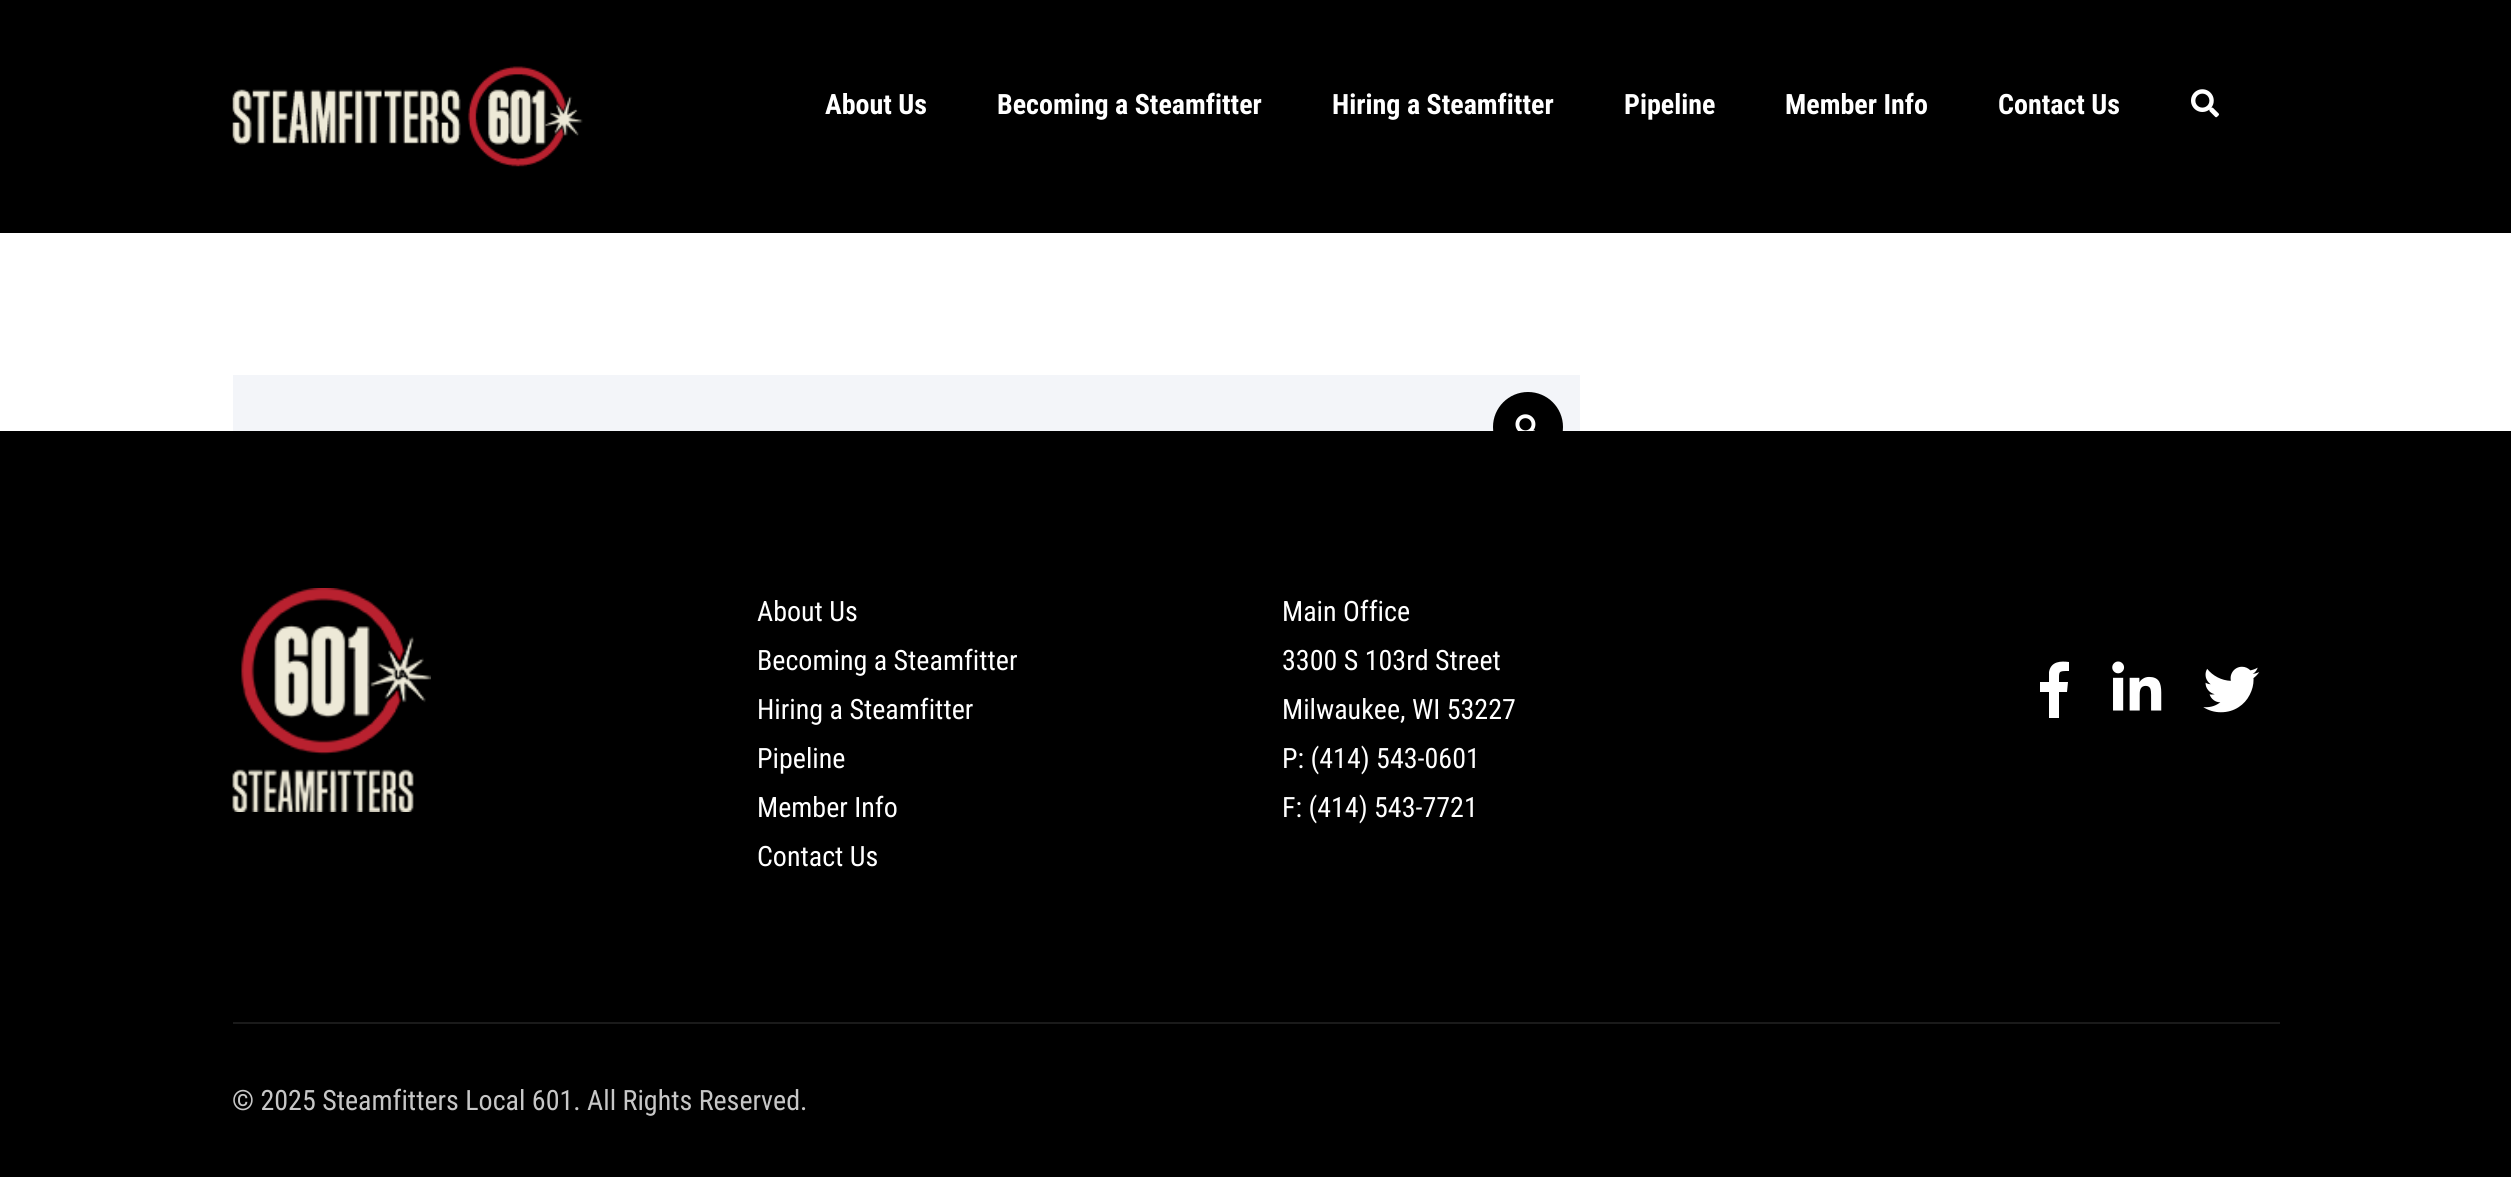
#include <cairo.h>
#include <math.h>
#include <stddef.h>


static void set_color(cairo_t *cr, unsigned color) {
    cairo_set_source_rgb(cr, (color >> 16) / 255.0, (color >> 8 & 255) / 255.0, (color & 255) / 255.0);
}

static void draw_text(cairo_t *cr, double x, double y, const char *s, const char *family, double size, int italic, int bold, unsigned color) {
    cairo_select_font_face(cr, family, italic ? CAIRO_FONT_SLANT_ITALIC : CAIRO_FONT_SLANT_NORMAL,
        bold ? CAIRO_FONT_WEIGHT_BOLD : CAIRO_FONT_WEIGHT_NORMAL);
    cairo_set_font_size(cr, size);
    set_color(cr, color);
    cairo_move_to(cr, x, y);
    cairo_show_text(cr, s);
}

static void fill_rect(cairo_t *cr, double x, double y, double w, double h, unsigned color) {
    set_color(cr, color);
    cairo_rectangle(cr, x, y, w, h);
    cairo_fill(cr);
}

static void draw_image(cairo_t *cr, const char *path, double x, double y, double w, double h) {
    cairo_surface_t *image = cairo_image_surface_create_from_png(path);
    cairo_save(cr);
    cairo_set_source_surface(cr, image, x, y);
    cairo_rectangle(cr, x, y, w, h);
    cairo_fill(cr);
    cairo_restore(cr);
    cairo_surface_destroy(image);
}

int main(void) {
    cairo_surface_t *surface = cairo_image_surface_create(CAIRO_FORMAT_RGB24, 2511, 1177);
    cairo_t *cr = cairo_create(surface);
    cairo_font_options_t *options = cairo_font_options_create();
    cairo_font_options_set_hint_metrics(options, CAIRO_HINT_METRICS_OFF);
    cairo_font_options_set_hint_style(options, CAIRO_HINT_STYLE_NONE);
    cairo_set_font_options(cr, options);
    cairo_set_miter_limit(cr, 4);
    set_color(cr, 0xFFFFFF);
    cairo_paint(cr);
    fill_rect(cr, 0, 0, 2511, 233, 0x000000);
    draw_image(cr, "assets/img1.png", 232, 66, 351, 101);
    draw_text(cr, 825, 114, "About Us", "Roboto Condensed", 28, 0, 1, 0xFFFFFF);
    draw_text(cr, 997, 114, "Becoming a Steamfitter", "Roboto Condensed", 28, 0, 1, 0xFFFFFF);
    draw_text(cr, 1332, 114, "Hiring a Steamfitter", "Roboto Condensed", 28, 0, 1, 0xFFFFFF);
    draw_text(cr, 1624, 114, "Pipeline", "Roboto Condensed", 28, 0, 1, 0xFFFFFF);
    draw_text(cr, 1785, 114, "Member Info", "Roboto Condensed", 28, 0, 1, 0xFFFFFF);
    draw_text(cr, 1998, 114, "Contact Us", "Roboto Condensed", 28, 0, 1, 0xFFFFFF);
    draw_image(cr, "assets/img2.png", 2191, 89, 28, 29);
    fill_rect(cr, 233, 375, 1347, 56, 0xF3F5F9);
    set_color(cr, 0x000000);
    cairo_arc(cr, 1528, 427, 35, 0, 2 * M_PI);
    cairo_fill(cr);
    draw_image(cr, "assets/img3.png", 1515, 414, 21, 17);
    fill_rect(cr, 0, 431, 2511, 746, 0x000000);
    draw_image(cr, "assets/img4.png", 232, 588, 199, 224);
    draw_text(cr, 757, 621, "About Us", "Roboto Condensed", 28, 0, 0, 0xFFFFFF);
    draw_text(cr, 757, 670, "Becoming a Steamfitter", "Roboto Condensed", 28, 0, 0, 0xFFFFFF);
    draw_text(cr, 757, 719, "Hiring a Steamfitter", "Roboto Condensed", 28, 0, 0, 0xFFFFFF);
    draw_text(cr, 757, 768, "Pipeline", "Roboto Condensed", 28, 0, 0, 0xFFFFFF);
    draw_text(cr, 757, 817, "Member Info", "Roboto Condensed", 28, 0, 0, 0xFFFFFF);
    draw_text(cr, 757, 866, "Contact Us", "Roboto Condensed", 28, 0, 0, 0xFFFFFF);
    draw_text(cr, 1282, 621, "Main Office", "Roboto Condensed", 28, 0, 0, 0xFFFFFF);
    draw_text(cr, 1282, 670, "3300 S 103rd Street", "Roboto Condensed", 28, 0, 0, 0xFFFFFF);
    draw_text(cr, 1282, 719, "Milwaukee, WI 53227", "Roboto Condensed", 28, 0, 0, 0xFFFFFF);
    draw_text(cr, 1282, 768, "P: (414) 543-0601", "Roboto Condensed", 28, 0, 0, 0xFFFFFF);
    draw_text(cr, 1282, 817, "F: (414) 543-7721", "Roboto Condensed", 28, 0, 0, 0xFFFFFF);
    cairo_new_path(cr);
    cairo_move_to(cr, 2049, 718);
    cairo_line_to(cr, 2049, 692);
    cairo_line_to(cr, 2040, 692);
    cairo_line_to(cr, 2040, 682);
    cairo_line_to(cr, 2049, 682);
    cairo_line_to(cr, 2049, 672);
    cairo_curve_to(cr, 2051, 661, 2061, 661, 2069, 662);
    cairo_line_to(cr, 2069, 671);
    cairo_curve_to(cr, 2058, 671, 2059, 671, 2059, 682);
    cairo_line_to(cr, 2068, 682);
    cairo_line_to(cr, 2067, 692);
    cairo_line_to(cr, 2059, 692);
    cairo_line_to(cr, 2059, 718);
    cairo_close_path(cr);
    cairo_fill(cr);
    draw_image(cr, "assets/img5.png", 2112, 661, 50, 50);
    draw_image(cr, "assets/img6.png", 2203, 666, 57, 47);
    fill_rect(cr, 233, 1022, 2047, 2, 0x1A1A1A);
    draw_text(cr, 232, 1110, "© 2025 Steamfitters Local 601. All Rights Reserved.", "Roboto Condensed", 28, 0, 0, 0xC7C7C7);
    cairo_surface_write_to_png(surface, "output.png");
    cairo_font_options_destroy(options);
    cairo_destroy(cr);
    cairo_surface_destroy(surface);
    return 0;
}
